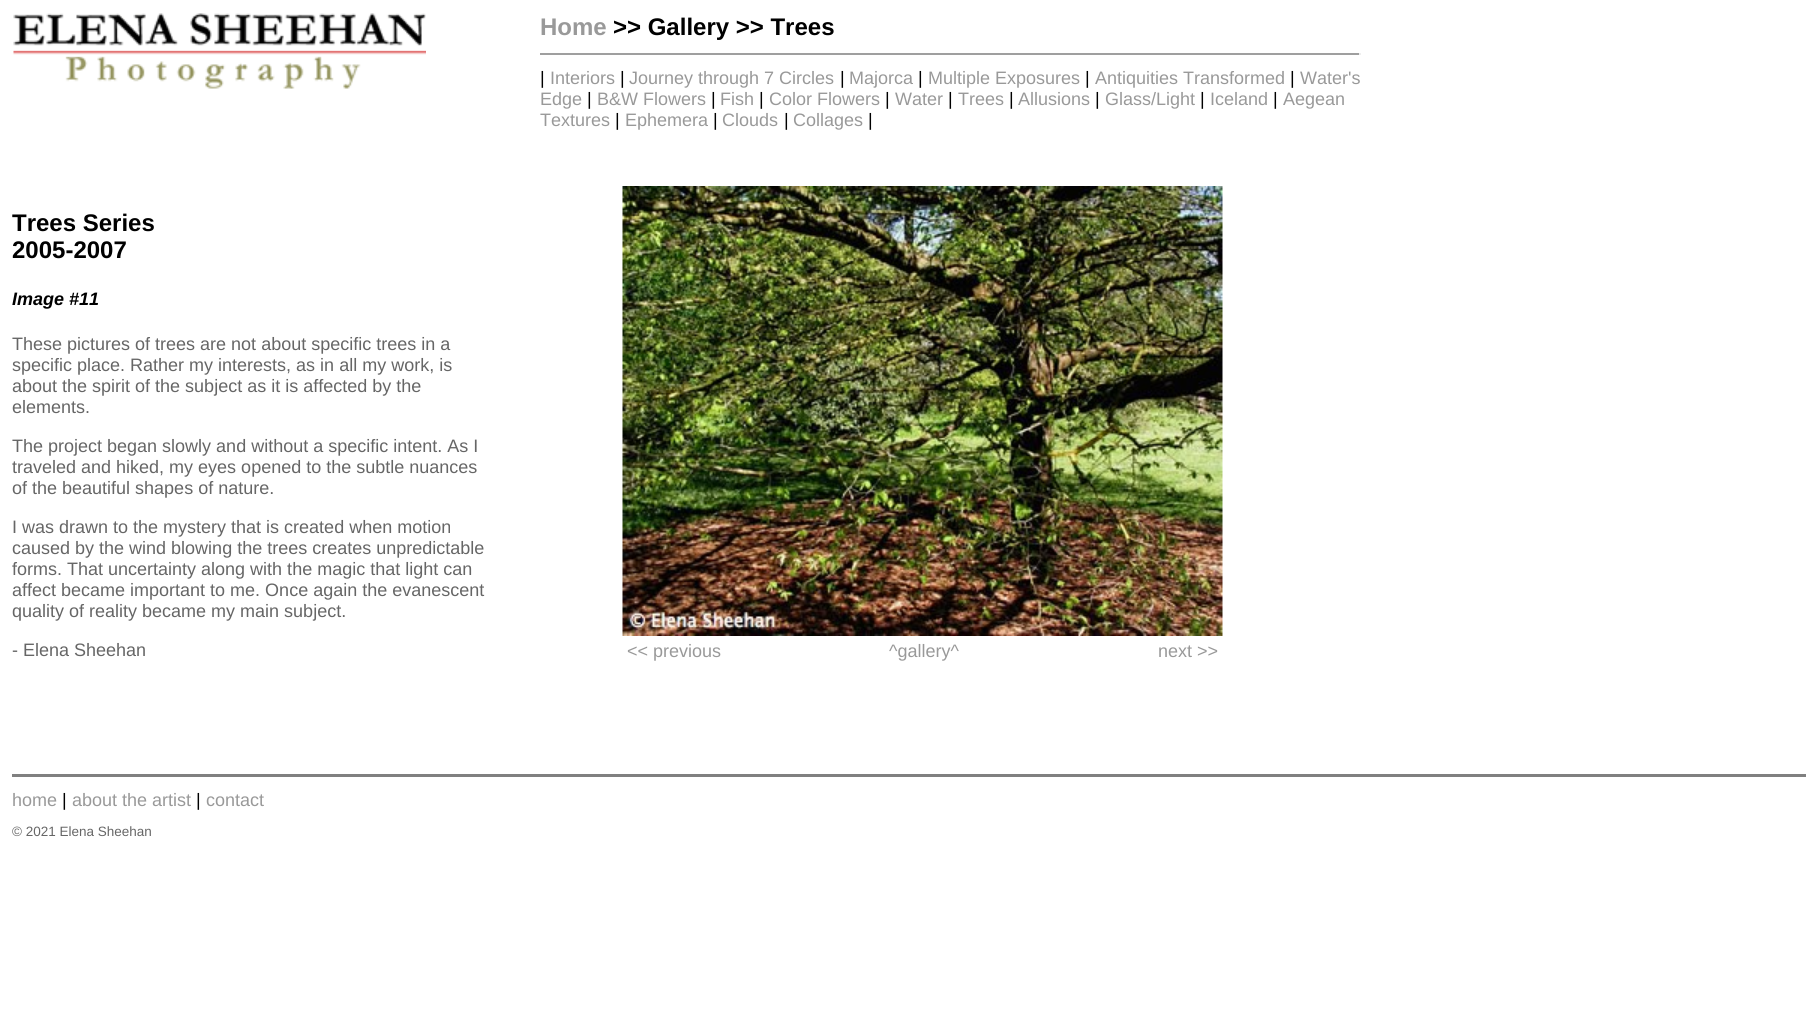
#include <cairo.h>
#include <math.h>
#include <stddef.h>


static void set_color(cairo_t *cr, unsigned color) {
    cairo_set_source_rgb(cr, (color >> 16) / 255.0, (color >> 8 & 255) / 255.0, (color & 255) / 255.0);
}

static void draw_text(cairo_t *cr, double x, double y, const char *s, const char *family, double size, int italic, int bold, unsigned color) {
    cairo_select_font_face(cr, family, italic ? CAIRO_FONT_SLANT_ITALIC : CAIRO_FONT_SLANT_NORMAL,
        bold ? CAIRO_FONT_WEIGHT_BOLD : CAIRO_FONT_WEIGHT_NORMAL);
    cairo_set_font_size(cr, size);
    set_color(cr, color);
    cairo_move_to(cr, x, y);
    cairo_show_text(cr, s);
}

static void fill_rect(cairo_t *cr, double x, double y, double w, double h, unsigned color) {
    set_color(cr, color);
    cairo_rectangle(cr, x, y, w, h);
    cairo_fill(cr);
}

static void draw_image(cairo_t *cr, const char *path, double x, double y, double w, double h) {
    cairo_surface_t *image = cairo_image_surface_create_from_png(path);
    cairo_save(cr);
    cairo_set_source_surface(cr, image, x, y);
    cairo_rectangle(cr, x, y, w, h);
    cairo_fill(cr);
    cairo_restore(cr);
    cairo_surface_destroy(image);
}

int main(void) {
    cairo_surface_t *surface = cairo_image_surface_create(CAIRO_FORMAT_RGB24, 1817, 1015);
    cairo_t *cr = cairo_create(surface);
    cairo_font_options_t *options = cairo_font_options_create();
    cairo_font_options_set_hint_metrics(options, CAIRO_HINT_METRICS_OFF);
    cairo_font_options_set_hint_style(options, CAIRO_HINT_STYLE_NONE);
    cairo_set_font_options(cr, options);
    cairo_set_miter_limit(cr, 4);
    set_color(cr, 0xFFFFFF);
    cairo_paint(cr);
    draw_image(cr, "assets/img1.png", 13, 13, 413, 76);
    draw_text(cr, 540, 35, "Home", "Liberation Sans", 24, 0, 1, 0x999999);
    draw_text(cr, 613, 35, ">> Gallery >> Trees", "Liberation Sans", 24, 0, 1, 0x000000);
    fill_rect(cr, 540, 53, 821, 2, 0x9F9F9F);
    fill_rect(cr, 1359, 53, 2, 2, 0xEEEEEE);
    draw_text(cr, 540, 84, "|", "Liberation Sans", 18, 0, 0, 0x000000);
    draw_text(cr, 550, 84, "Interiors", "Liberation Sans", 18, 0, 0, 0x999999);
    draw_text(cr, 620, 84, "|", "Liberation Sans", 18, 0, 0, 0x000000);
    draw_text(cr, 629, 84, "Journey through 7 Circles", "Liberation Sans", 18, 0, 0, 0x999999);
    draw_text(cr, 840, 84, "|", "Liberation Sans", 18, 0, 0, 0x000000);
    draw_text(cr, 849, 84, "Majorca", "Liberation Sans", 18, 0, 0, 0x999999);
    draw_text(cr, 918, 84, "|", "Liberation Sans", 18, 0, 0, 0x000000);
    draw_text(cr, 928, 84, "Multiple Exposures", "Liberation Sans", 18, 0, 0, 0x999999);
    draw_text(cr, 1085, 84, "|", "Liberation Sans", 18, 0, 0, 0x000000);
    draw_text(cr, 1095, 84, "Antiquities Transformed", "Liberation Sans", 18, 0, 0, 0x999999);
    draw_text(cr, 1290, 84, "|", "Liberation Sans", 18, 0, 0, 0x000000);
    draw_text(cr, 1300, 84, "Water's", "Liberation Sans", 18, 0, 0, 0x999999);
    draw_text(cr, 540, 105, "Edge", "Liberation Sans", 18, 0, 0, 0x999999);
    draw_text(cr, 587, 105, "|", "Liberation Sans", 18, 0, 0, 0x000000);
    draw_text(cr, 597, 105, "B&W Flowers", "Liberation Sans", 18, 0, 0, 0x999999);
    draw_text(cr, 711, 105, "|", "Liberation Sans", 18, 0, 0, 0x000000);
    draw_text(cr, 720, 105, "Fish", "Liberation Sans", 18, 0, 0, 0x999999);
    draw_text(cr, 759, 105, "|", "Liberation Sans", 18, 0, 0, 0x000000);
    draw_text(cr, 769, 105, "Color Flowers", "Liberation Sans", 18, 0, 0, 0x999999);
    draw_text(cr, 885, 105, "|", "Liberation Sans", 18, 0, 0, 0x000000);
    draw_text(cr, 895, 105, "Water", "Liberation Sans", 18, 0, 0, 0x999999);
    draw_text(cr, 948, 105, "|", "Liberation Sans", 18, 0, 0, 0x000000);
    draw_text(cr, 958, 105, "Trees", "Liberation Sans", 18, 0, 0, 0x999999);
    draw_text(cr, 1009, 105, "|", "Liberation Sans", 18, 0, 0, 0x000000);
    draw_text(cr, 1018, 105, "Allusions", "Liberation Sans", 18, 0, 0, 0x999999);
    draw_text(cr, 1095, 105, "|", "Liberation Sans", 18, 0, 0, 0x000000);
    draw_text(cr, 1105, 105, "Glass/Light", "Liberation Sans", 18, 0, 0, 0x999999);
    draw_text(cr, 1200, 105, "|", "Liberation Sans", 18, 0, 0, 0x000000);
    draw_text(cr, 1210, 105, "Iceland", "Liberation Sans", 18, 0, 0, 0x999999);
    draw_text(cr, 1273, 105, "|", "Liberation Sans", 18, 0, 0, 0x000000);
    draw_text(cr, 1283, 105, "Aegean", "Liberation Sans", 18, 0, 0, 0x999999);
    draw_text(cr, 540, 126, "Textures", "Liberation Sans", 18, 0, 0, 0x999999);
    draw_text(cr, 615, 126, "|", "Liberation Sans", 18, 0, 0, 0x000000);
    draw_text(cr, 625, 126, "Ephemera", "Liberation Sans", 18, 0, 0, 0x999999);
    draw_text(cr, 713, 126, "|", "Liberation Sans", 18, 0, 0, 0x000000);
    draw_text(cr, 722, 126, "Clouds", "Liberation Sans", 18, 0, 0, 0x999999);
    draw_text(cr, 784, 126, "|", "Liberation Sans", 18, 0, 0, 0x000000);
    draw_text(cr, 793, 126, "Collages", "Liberation Sans", 18, 0, 0, 0x999999);
    draw_text(cr, 868, 126, "|", "Liberation Sans", 18, 0, 0, 0x000000);
    draw_text(cr, 12, 231, "Trees Series", "Liberation Sans", 24, 0, 1, 0x000000);
    draw_text(cr, 12, 258, "2005-2007", "Liberation Sans", 24, 0, 1, 0x000000);
    draw_text(cr, 12, 305, "Image #11", "Liberation Sans", 18, 1, 1, 0x000000);
    draw_text(cr, 12, 350, "These pictures of trees are not about specific trees in a", "Liberation Sans", 18, 0, 0, 0x666666);
    draw_text(cr, 12, 371, "specific place. Rather my interests, as in all my work, is", "Liberation Sans", 18, 0, 0, 0x666666);
    draw_text(cr, 12, 392, "about the spirit of the subject as it is affected by the", "Liberation Sans", 18, 0, 0, 0x666666);
    draw_text(cr, 12, 413, "elements.", "Liberation Sans", 18, 0, 0, 0x666666);
    draw_text(cr, 12, 452, "The project began slowly and without a specific intent. As I", "Liberation Sans", 18, 0, 0, 0x666666);
    draw_text(cr, 12, 473, "traveled and hiked, my eyes opened to the subtle nuances", "Liberation Sans", 18, 0, 0, 0x666666);
    draw_text(cr, 12, 494, "of the beautiful shapes of nature.", "Liberation Sans", 18, 0, 0, 0x666666);
    draw_text(cr, 12, 533, "I was drawn to the mystery that is created when motion", "Liberation Sans", 18, 0, 0, 0x666666);
    draw_text(cr, 12, 554, "caused by the wind blowing the trees creates unpredictable", "Liberation Sans", 18, 0, 0, 0x666666);
    draw_text(cr, 12, 575, "forms. That uncertainty along with the magic that light can", "Liberation Sans", 18, 0, 0, 0x666666);
    draw_text(cr, 12, 596, "affect became important to me. Once again the evanescent", "Liberation Sans", 18, 0, 0, 0x666666);
    draw_text(cr, 12, 617, "quality of reality became my main subject.", "Liberation Sans", 18, 0, 0, 0x666666);
    draw_text(cr, 12, 656, "- Elena Sheehan", "Liberation Sans", 18, 0, 0, 0x666666);
    draw_image(cr, "assets/img2.png", 622, 186, 601, 450);
    draw_text(cr, 627, 657, "<< previous", "Liberation Sans", 18, 0, 0, 0x999999);
    draw_text(cr, 889, 657, "^gallery^", "Liberation Sans", 18, 0, 0, 0x999999);
    draw_text(cr, 1158, 657, "next >>", "Liberation Sans", 18, 0, 0, 0x999999);
    fill_rect(cr, 12, 774, 1794, 3, 0x808080);
    draw_text(cr, 12, 806, "home", "Liberation Sans", 18, 0, 0, 0x999999);
    draw_text(cr, 62, 806, "|", "Liberation Sans", 18, 0, 0, 0x000000);
    draw_text(cr, 72, 806, "about the artist", "Liberation Sans", 18, 0, 0, 0x999999);
    draw_text(cr, 196, 806, "|", "Liberation Sans", 18, 0, 0, 0x000000);
    draw_text(cr, 206, 806, "contact", "Liberation Sans", 18, 0, 0, 0x999999);
    draw_text(cr, 12, 836, "© 2021 Elena Sheehan", "Liberation Sans", 13.5, 0, 0, 0x666666);
    cairo_surface_write_to_png(surface, "output.png");
    cairo_font_options_destroy(options);
    cairo_destroy(cr);
    cairo_surface_destroy(surface);
    return 0;
}
